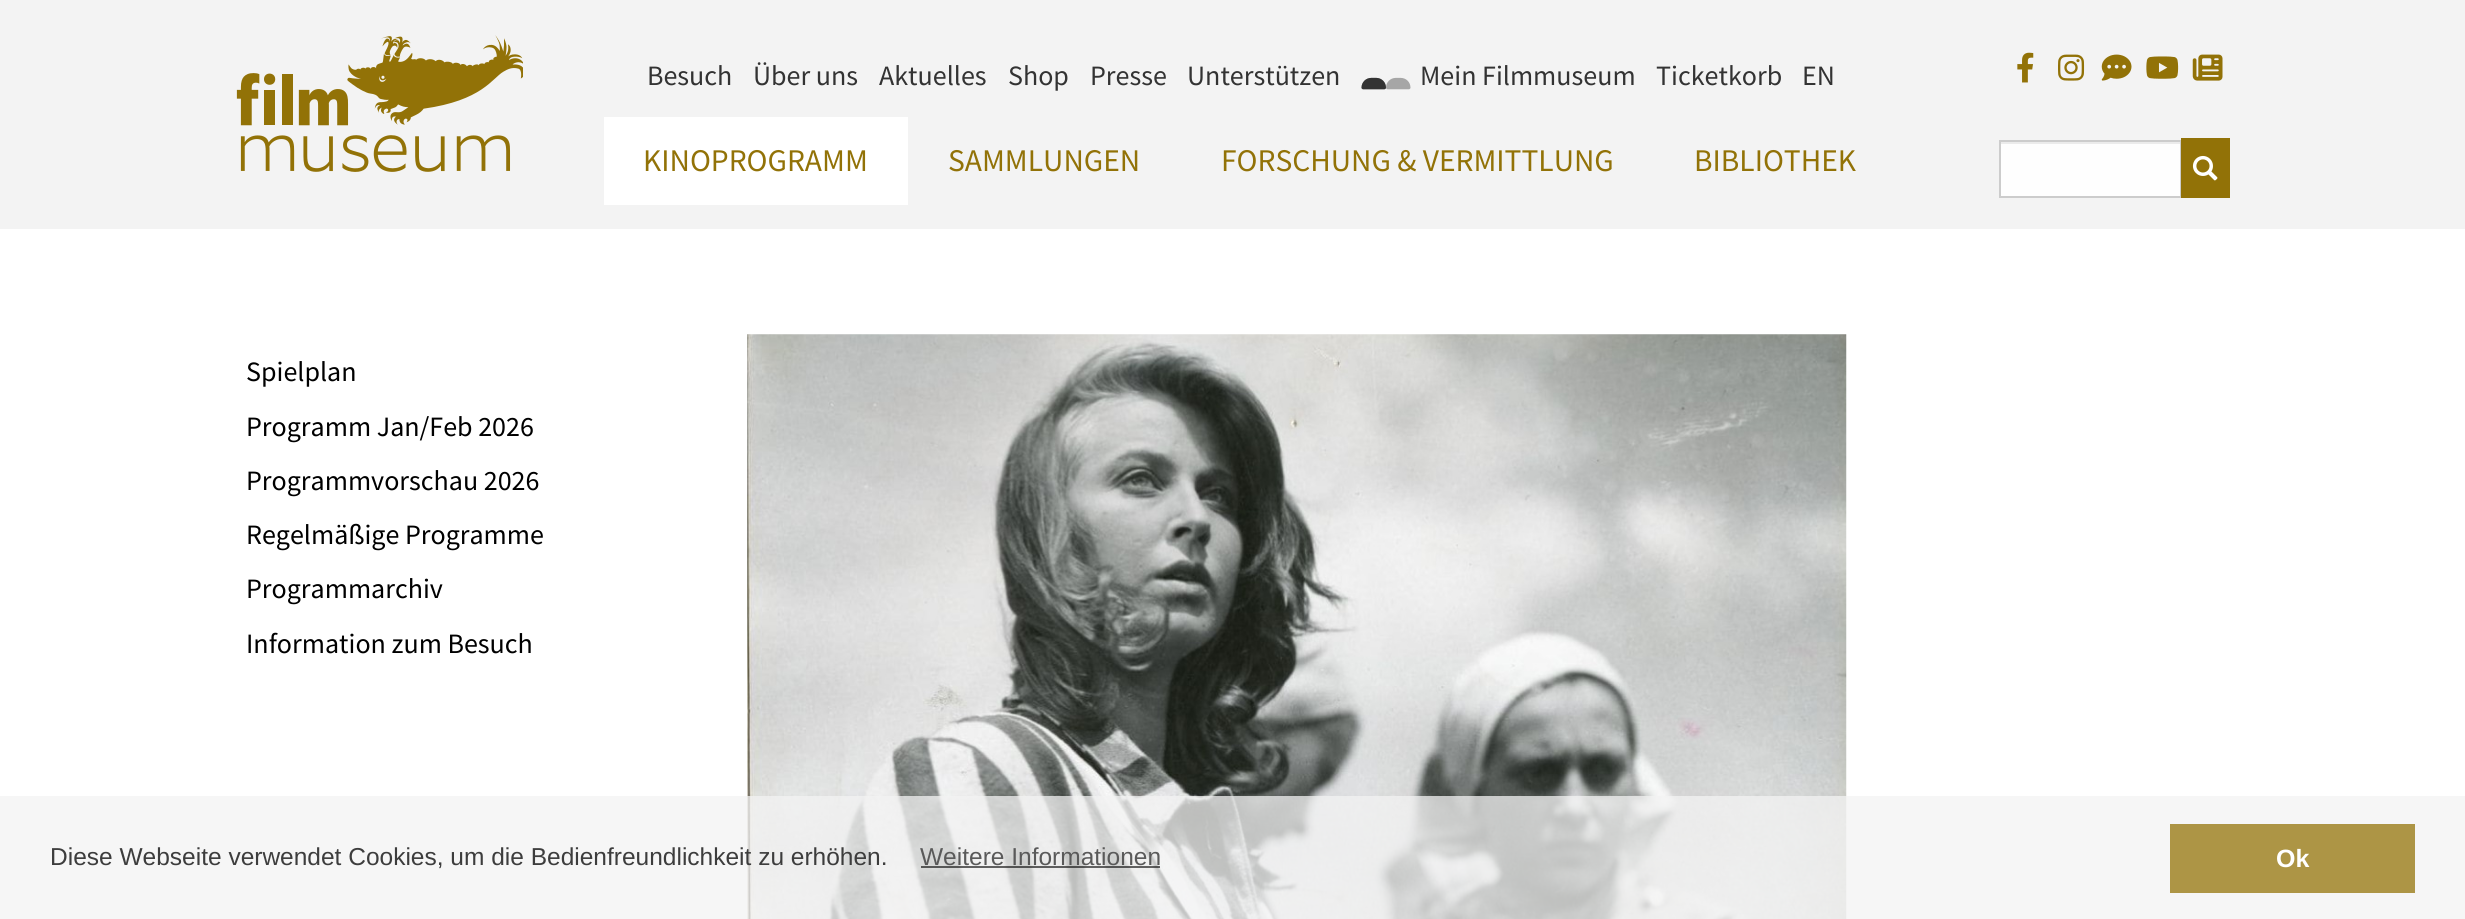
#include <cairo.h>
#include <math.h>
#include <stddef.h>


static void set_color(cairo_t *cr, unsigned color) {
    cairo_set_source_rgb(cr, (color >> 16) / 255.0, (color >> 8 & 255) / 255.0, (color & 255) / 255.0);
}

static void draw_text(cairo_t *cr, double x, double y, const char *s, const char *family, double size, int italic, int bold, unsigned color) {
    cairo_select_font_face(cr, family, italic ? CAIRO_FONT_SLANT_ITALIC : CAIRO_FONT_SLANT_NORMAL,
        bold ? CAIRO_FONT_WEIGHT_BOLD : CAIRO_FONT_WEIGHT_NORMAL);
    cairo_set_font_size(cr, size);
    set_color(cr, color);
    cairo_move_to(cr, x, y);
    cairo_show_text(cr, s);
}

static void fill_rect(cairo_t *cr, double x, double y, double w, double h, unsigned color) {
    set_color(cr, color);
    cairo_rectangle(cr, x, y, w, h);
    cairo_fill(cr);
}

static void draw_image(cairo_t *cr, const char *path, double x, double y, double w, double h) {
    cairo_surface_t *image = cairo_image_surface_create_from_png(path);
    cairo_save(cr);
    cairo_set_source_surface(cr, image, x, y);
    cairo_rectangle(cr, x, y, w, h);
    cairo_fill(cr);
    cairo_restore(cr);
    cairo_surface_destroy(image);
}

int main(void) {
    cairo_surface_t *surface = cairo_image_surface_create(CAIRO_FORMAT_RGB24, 2465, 919);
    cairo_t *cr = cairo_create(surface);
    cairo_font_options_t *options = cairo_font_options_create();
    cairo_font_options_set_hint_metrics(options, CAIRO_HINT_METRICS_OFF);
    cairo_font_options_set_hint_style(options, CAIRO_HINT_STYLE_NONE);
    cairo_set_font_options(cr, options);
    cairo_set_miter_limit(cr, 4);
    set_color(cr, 0xFFFFFF);
    cairo_paint(cr);
    fill_rect(cr, 0, 0, 2465, 229, 0xF3F3F3);
    draw_image(cr, "assets/img1.png", 236, 35, 287, 137);
    draw_text(cr, 647, 85, "Besuch", "Source Sans Pro", 28, 0, 0, 0x333333);
    draw_text(cr, 753, 85, "Über uns", "Source Sans Pro", 28, 0, 0, 0x333333);
    draw_text(cr, 879, 85, "Aktuelles", "Source Sans Pro", 28, 0, 0, 0x333333);
    draw_text(cr, 1008, 85, "Shop", "Source Sans Pro", 28, 0, 0, 0x333333);
    draw_text(cr, 1090, 85, "Presse", "Source Sans Pro", 28, 0, 0, 0x333333);
    draw_text(cr, 1187, 85, "Unterstützen", "Source Sans Pro", 28, 0, 0, 0x333333);
    draw_image(cr, "assets/img2.png", 1361, 77, 25, 13);
    draw_image(cr, "assets/img3.png", 1361, 77, 50, 13);
    draw_text(cr, 1420, 85, "Mein Filmmuseum", "Source Sans Pro", 28, 0, 0, 0x333333);
    draw_text(cr, 1656, 85, "Ticketkorb", "Source Sans Pro", 28, 0, 0, 0x333333);
    draw_text(cr, 1802, 85, "EN", "Source Sans Pro", 28, 0, 0, 0x333333);
    draw_image(cr, "assets/img4.png", 2017, 52, 17, 31);
    draw_image(cr, "assets/img5.png", 2058, 54, 27, 27);
    draw_image(cr, "assets/img6.png", 2101, 54, 31, 27);
    draw_image(cr, "assets/img7.png", 2146, 56, 33, 23);
    draw_image(cr, "assets/img8.png", 2192, 54, 31, 27);
    fill_rect(cr, 604, 117, 304, 88, 0xFFFFFF);
    draw_text(cr, 643, 171, "KINOPROGRAMM", "Source Sans Pro", 31.5, 0, 0, 0x927207);
    draw_text(cr, 948, 171, "SAMMLUNGEN", "Source Sans Pro", 31.5, 0, 0, 0x927207);
    draw_text(cr, 1221, 171, "FORSCHUNG & VERMITTLUNG", "Source Sans Pro", 31.5, 0, 0, 0x927207);
    draw_text(cr, 1694, 171, "BIBLIOTHEK", "Source Sans Pro", 31.5, 0, 0, 0x927207);
    fill_rect(cr, 2001, 144, 179, 52, 0xFEFEFE);
    fill_rect(cr, 2000, 142, 181, 2, 0xEBEBEB);
    cairo_rectangle(cr, 2000, 141, 181, 56);
    set_color(cr, 0xCCCCCC);
    cairo_stroke(cr);
    fill_rect(cr, 2181, 138, 49, 60, 0x927207);
    draw_image(cr, "assets/img9.png", 2192, 155, 26, 26);
    draw_text(cr, 246, 381, "Spielplan", "Source Sans Pro", 28, 0, 0, 0x000000);
    draw_text(cr, 246, 436, "Programm Jan/Feb 2026", "Source Sans Pro", 28, 0, 0, 0x000000);
    draw_text(cr, 246, 490, "Programmvorschau 2026", "Source Sans Pro", 28, 0, 0, 0x000000);
    draw_text(cr, 246, 544, "Regelmäßige Programme", "Source Sans Pro", 28, 0, 0, 0x000000);
    draw_text(cr, 246, 598, "Programmarchiv", "Source Sans Pro", 28, 0, 0, 0x000000);
    draw_text(cr, 246, 653, "Information zum Besuch", "Source Sans Pro", 28, 0, 0, 0x000000);
    draw_image(cr, "assets/img10.png", 747, 334, 1100, 585);
    cairo_set_source_rgba(cr, 0.953, 0.953, 0.953, 0.75);
    cairo_rectangle(cr, 0, 796, 2465, 123);
    cairo_fill(cr);
    draw_text(cr, 50, 865, "Diese Webseite verwendet Cookies, um die Bedienfreundlichkeit zu erhöhen.", "Liberation Sans", 24.5, 0, 0, 0x3D3D3D);
    draw_text(cr, 920, 865, "Weitere Informationen", "Liberation Sans", 24.5, 0, 0, 0x5A5A5A);
    cairo_set_source_rgba(cr, 0, 0, 0, 0.6);
    cairo_rectangle(cr, 921, 866, 239, 2);
    cairo_fill(cr);
    fill_rect(cr, 2170, 824, 245, 69, 0xAD9545);
    draw_text(cr, 2276, 867, "Ok", "Liberation Sans", 25, 0, 1, 0xFFFFFF);
    cairo_surface_write_to_png(surface, "output.png");
    cairo_font_options_destroy(options);
    cairo_destroy(cr);
    cairo_surface_destroy(surface);
    return 0;
}
